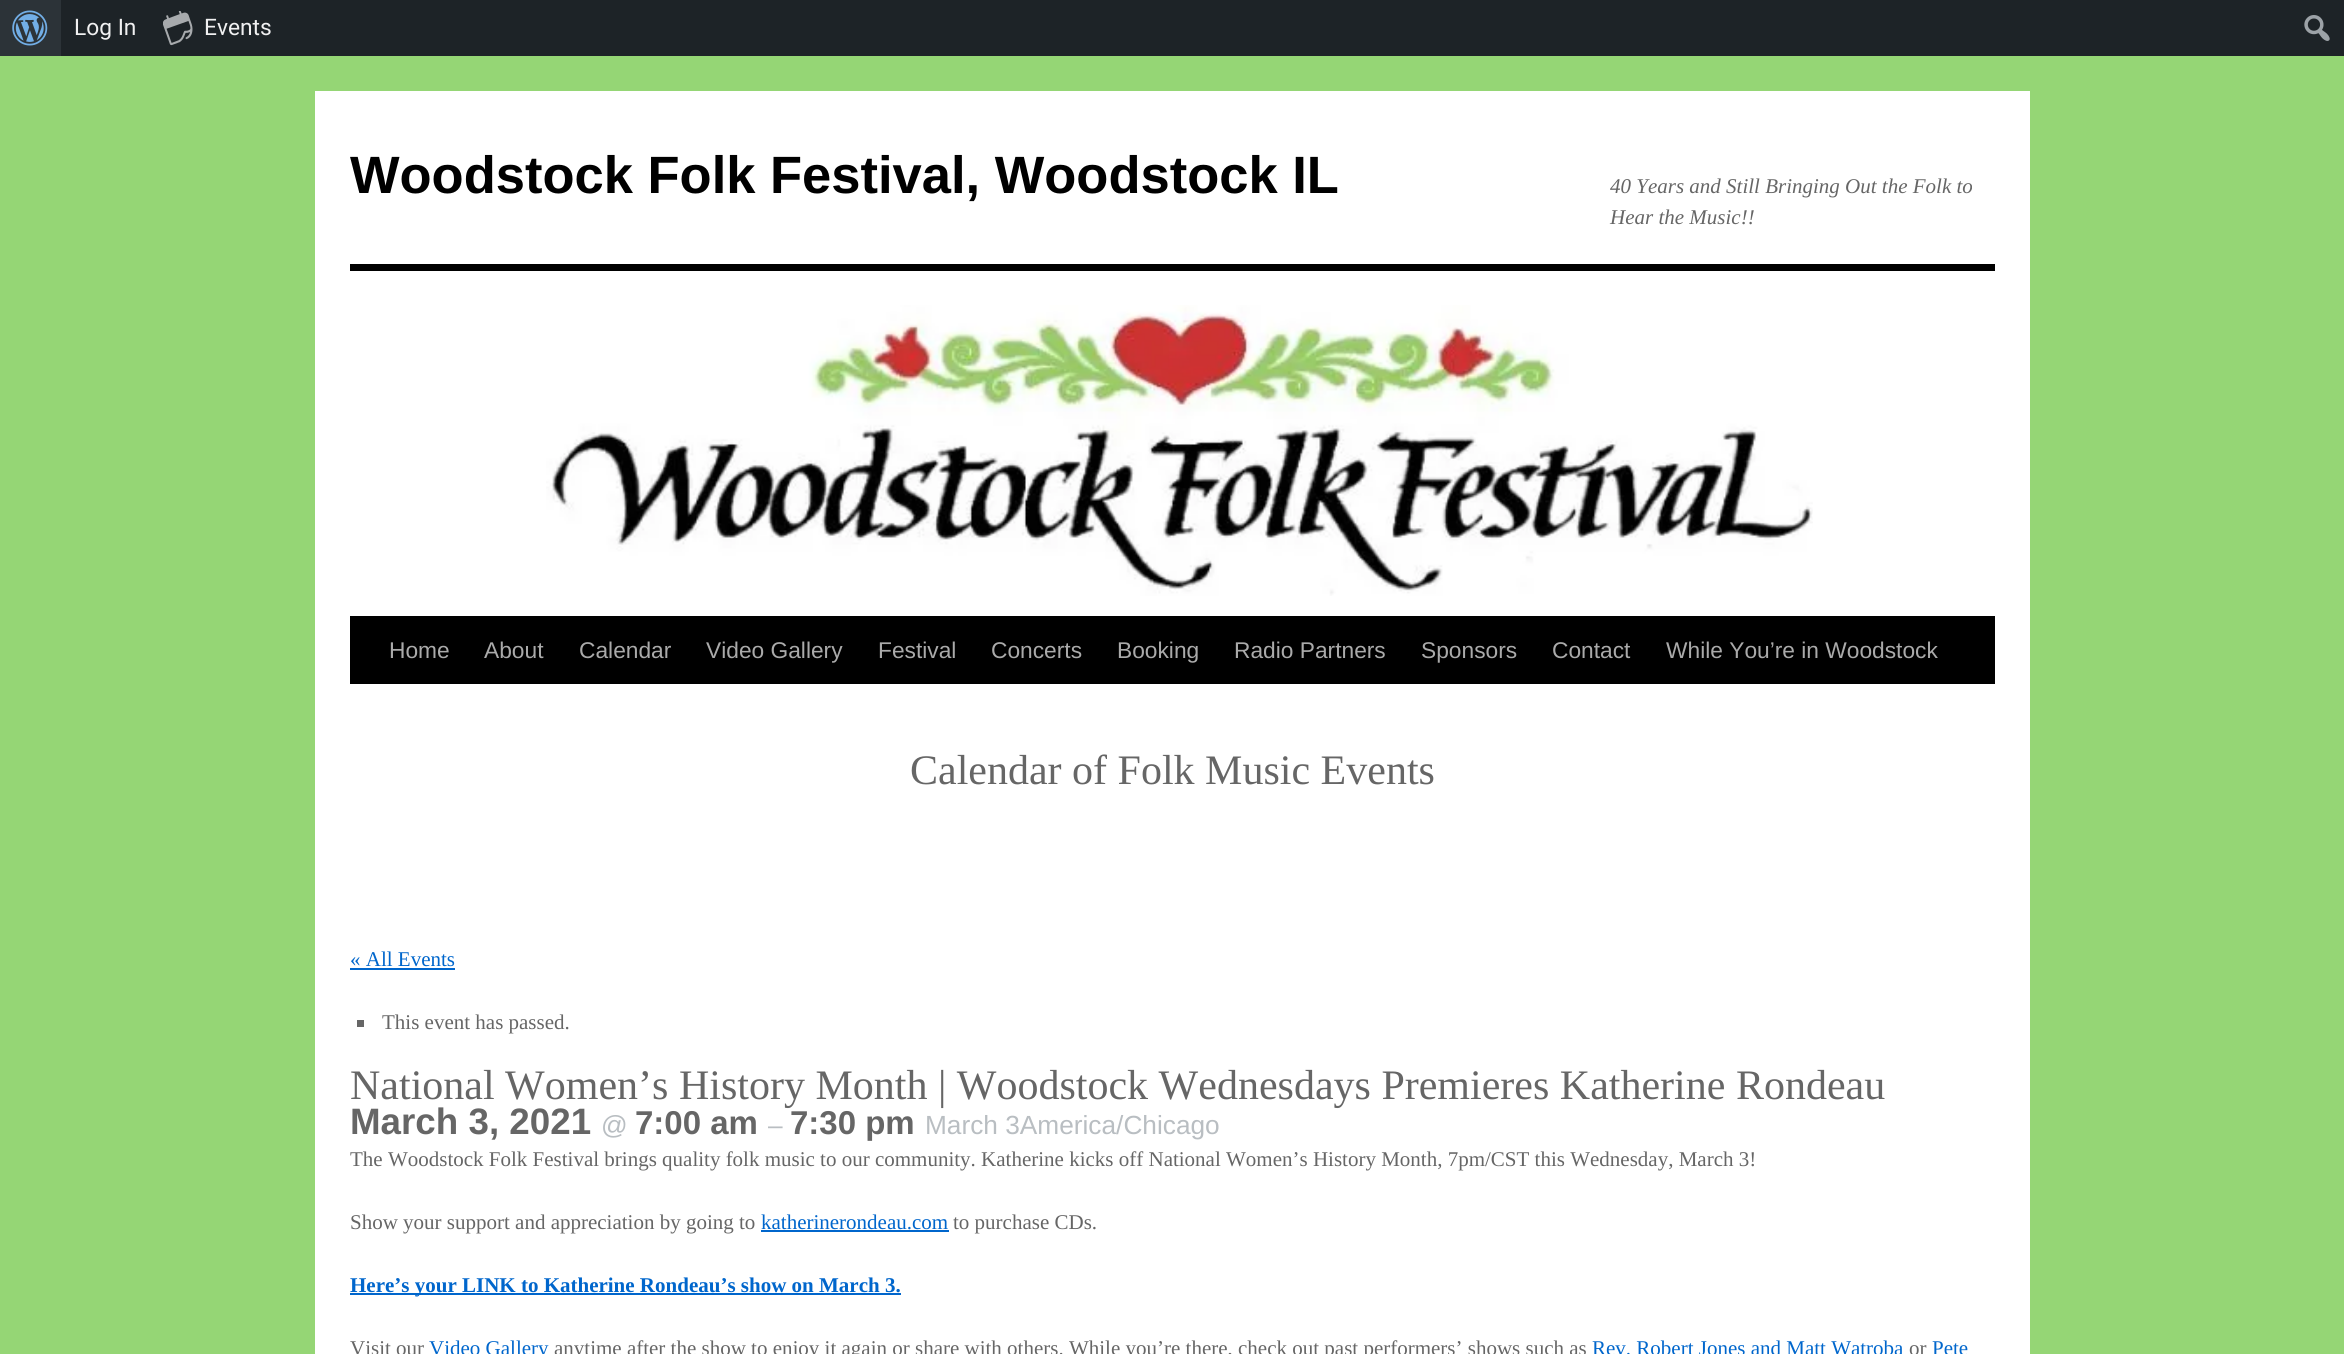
#include <cairo.h>
#include <math.h>
#include <stddef.h>


static void set_color(cairo_t *cr, unsigned color) {
    cairo_set_source_rgb(cr, (color >> 16) / 255.0, (color >> 8 & 255) / 255.0, (color & 255) / 255.0);
}

static void draw_text(cairo_t *cr, double x, double y, const char *s, const char *family, double size, int italic, int bold, unsigned color) {
    cairo_select_font_face(cr, family, italic ? CAIRO_FONT_SLANT_ITALIC : CAIRO_FONT_SLANT_NORMAL,
        bold ? CAIRO_FONT_WEIGHT_BOLD : CAIRO_FONT_WEIGHT_NORMAL);
    cairo_set_font_size(cr, size);
    set_color(cr, color);
    cairo_move_to(cr, x, y);
    cairo_show_text(cr, s);
}

static void fill_rect(cairo_t *cr, double x, double y, double w, double h, unsigned color) {
    set_color(cr, color);
    cairo_rectangle(cr, x, y, w, h);
    cairo_fill(cr);
}

static void draw_image(cairo_t *cr, const char *path, double x, double y, double w, double h) {
    cairo_surface_t *image = cairo_image_surface_create_from_png(path);
    cairo_save(cr);
    cairo_set_source_surface(cr, image, x, y);
    cairo_rectangle(cr, x, y, w, h);
    cairo_fill(cr);
    cairo_restore(cr);
    cairo_surface_destroy(image);
}

int main(void) {
    cairo_surface_t *surface = cairo_image_surface_create(CAIRO_FORMAT_RGB24, 2344, 1354);
    cairo_t *cr = cairo_create(surface);
    cairo_font_options_t *options = cairo_font_options_create();
    cairo_font_options_set_hint_metrics(options, CAIRO_HINT_METRICS_OFF);
    cairo_font_options_set_hint_style(options, CAIRO_HINT_STYLE_NONE);
    cairo_set_font_options(cr, options);
    cairo_set_miter_limit(cr, 4);
    set_color(cr, 0x95D675);
    cairo_paint(cr);
    fill_rect(cr, 61, 0, 2283, 56, 0x1D2327);
    fill_rect(cr, 0, 0, 61, 56, 0x2C3338);
    draw_image(cr, "assets/img1.png", 12, 10, 36, 36);
    draw_text(cr, 74, 35, "Log In", "Roboto", 22.75, 0, 0, 0xF0F0F1);
    draw_image(cr, "assets/img2.png", 163, 11, 30, 35);
    draw_text(cr, 204, 35, "Events", "Roboto", 22.75, 0, 0, 0xF0F0F1);
    draw_image(cr, "assets/img3.png", 2304, 15, 26, 26);
    fill_rect(cr, 315, 91, 1715, 1263, 0xFFFFFF);
    draw_text(cr, 350, 193, "Woodstock Folk Festival, Woodstock IL", "Liberation Sans", 52.5, 0, 1, 0x000000);
    draw_text(cr, 1610, 193, "40 Years and Still Bringing Out the Folk to", "Liberation Serif", 21, 1, 0, 0x666666);
    draw_text(cr, 1610, 224, "Hear the Music!!", "Liberation Serif", 21, 1, 0, 0x666666);
    fill_rect(cr, 350, 264, 1645, 7, 0x000000);
    fill_rect(cr, 350, 616, 1645, 68, 0x000000);
    draw_image(cr, "assets/img4.png", 546, 305, 1267, 291);
    draw_text(cr, 389, 658, "Home", "Liberation Sans", 22.75, 0, 0, 0xAAAAAA);
    draw_text(cr, 484, 658, "About", "Liberation Sans", 22.75, 0, 0, 0xAAAAAA);
    draw_text(cr, 579, 658, "Calendar", "Liberation Sans", 22.75, 0, 0, 0xAAAAAA);
    draw_text(cr, 706, 658, "Video Gallery", "Liberation Sans", 22.75, 0, 0, 0xAAAAAA);
    draw_text(cr, 878, 658, "Festival", "Liberation Sans", 22.75, 0, 0, 0xAAAAAA);
    draw_text(cr, 991, 658, "Concerts", "Liberation Sans", 22.75, 0, 0, 0xAAAAAA);
    draw_text(cr, 1117, 658, "Booking", "Liberation Sans", 22.75, 0, 0, 0xAAAAAA);
    draw_text(cr, 1234, 658, "Radio Partners", "Liberation Sans", 22.75, 0, 0, 0xAAAAAA);
    draw_text(cr, 1421, 658, "Sponsors", "Liberation Sans", 22.75, 0, 0, 0xAAAAAA);
    draw_text(cr, 1552, 658, "Contact", "Liberation Sans", 22.75, 0, 0, 0xAAAAAA);
    draw_text(cr, 1666, 658, "While You’re in Woodstock", "Liberation Sans", 22.75, 0, 0, 0xAAAAAA);
    draw_text(cr, 910, 784, "Calendar of Folk Music Events", "Liberation Serif", 42, 0, 0, 0x666666);
    draw_text(cr, 350, 966, "« All Events", "Liberation Serif", 21, 0, 0, 0x0066CC);
    fill_rect(cr, 350, 968, 105, 2, 0x0066CC);
    fill_rect(cr, 357, 1020, 7, 7, 0x666666);
    draw_text(cr, 382, 1029, "This event has passed.", "Liberation Serif", 21, 0, 0, 0x666666);
    draw_text(cr, 350, 1099, "National Women’s History Month | Woodstock Wednesdays Premieres Katherine Rondeau", "Liberation Serif", 42, 0, 0, 0x666666);
    draw_text(cr, 350, 1134, "March 3, 2021", "Liberation Sans", 36.75, 0, 1, 0x666666);
    draw_text(cr, 601, 1134, "@", "Liberation Sans", 26.25, 0, 0, 0xB9BEC2);
    draw_text(cr, 635, 1134, "7:00 am", "Liberation Sans", 33, 0, 1, 0x666666);
    draw_text(cr, 768, 1134, "–", "Liberation Sans", 26.25, 0, 0, 0xB9BEC2);
    draw_text(cr, 790, 1134, "7:30 pm", "Liberation Sans", 33, 0, 1, 0x666666);
    draw_text(cr, 925, 1134, "March 3America/Chicago", "Liberation Sans", 26.25, 0, 0, 0xB9BEC2);
    draw_text(cr, 350, 1166, "The Woodstock Folk Festival brings quality folk music to our community. Katherine kicks off National Women’s History Month, 7pm/CST this Wednesday, March 3!", "Liberation Serif", 21, 0, 0, 0x666666);
    draw_text(cr, 350, 1229, "Show your support and appreciation by going to", "Liberation Serif", 21, 0, 0, 0x666666);
    draw_text(cr, 761, 1229, "katherinerondeau.com", "Liberation Serif", 21, 0, 0, 0x0066CC);
    fill_rect(cr, 761, 1230, 188, 2, 0x0066CC);
    draw_text(cr, 953, 1229, "to purchase CDs.", "Liberation Serif", 21, 0, 0, 0x666666);
    fill_rect(cr, 350, 1293, 551, 2, 0x0066CC);
    draw_text(cr, 350, 1292, "Here’s your LINK to Katherine Rondeau’s show on March 3.", "Liberation Serif", 21, 0, 1, 0x0066CC);
    draw_text(cr, 350, 1355, "Visit our", "Liberation Serif", 21, 0, 0, 0x666666);
    draw_text(cr, 429, 1355, "Video Gallery", "Liberation Serif", 21, 0, 0, 0x0066CC);
    draw_text(cr, 554, 1355, "anytime after the show to enjoy it again or share with others. While you’re there, check out past performers’ shows such as", "Liberation Serif", 21, 0, 0, 0x666666);
    draw_text(cr, 1592, 1355, "Rev. Robert Jones and Matt Watroba", "Liberation Serif", 21, 0, 0, 0x0066CC);
    draw_text(cr, 1909, 1355, "or", "Liberation Serif", 21, 0, 0, 0x666666);
    draw_text(cr, 1932, 1355, "Pete", "Liberation Serif", 21, 0, 0, 0x0066CC);
    cairo_surface_write_to_png(surface, "output.png");
    cairo_font_options_destroy(options);
    cairo_destroy(cr);
    cairo_surface_destroy(surface);
    return 0;
}
